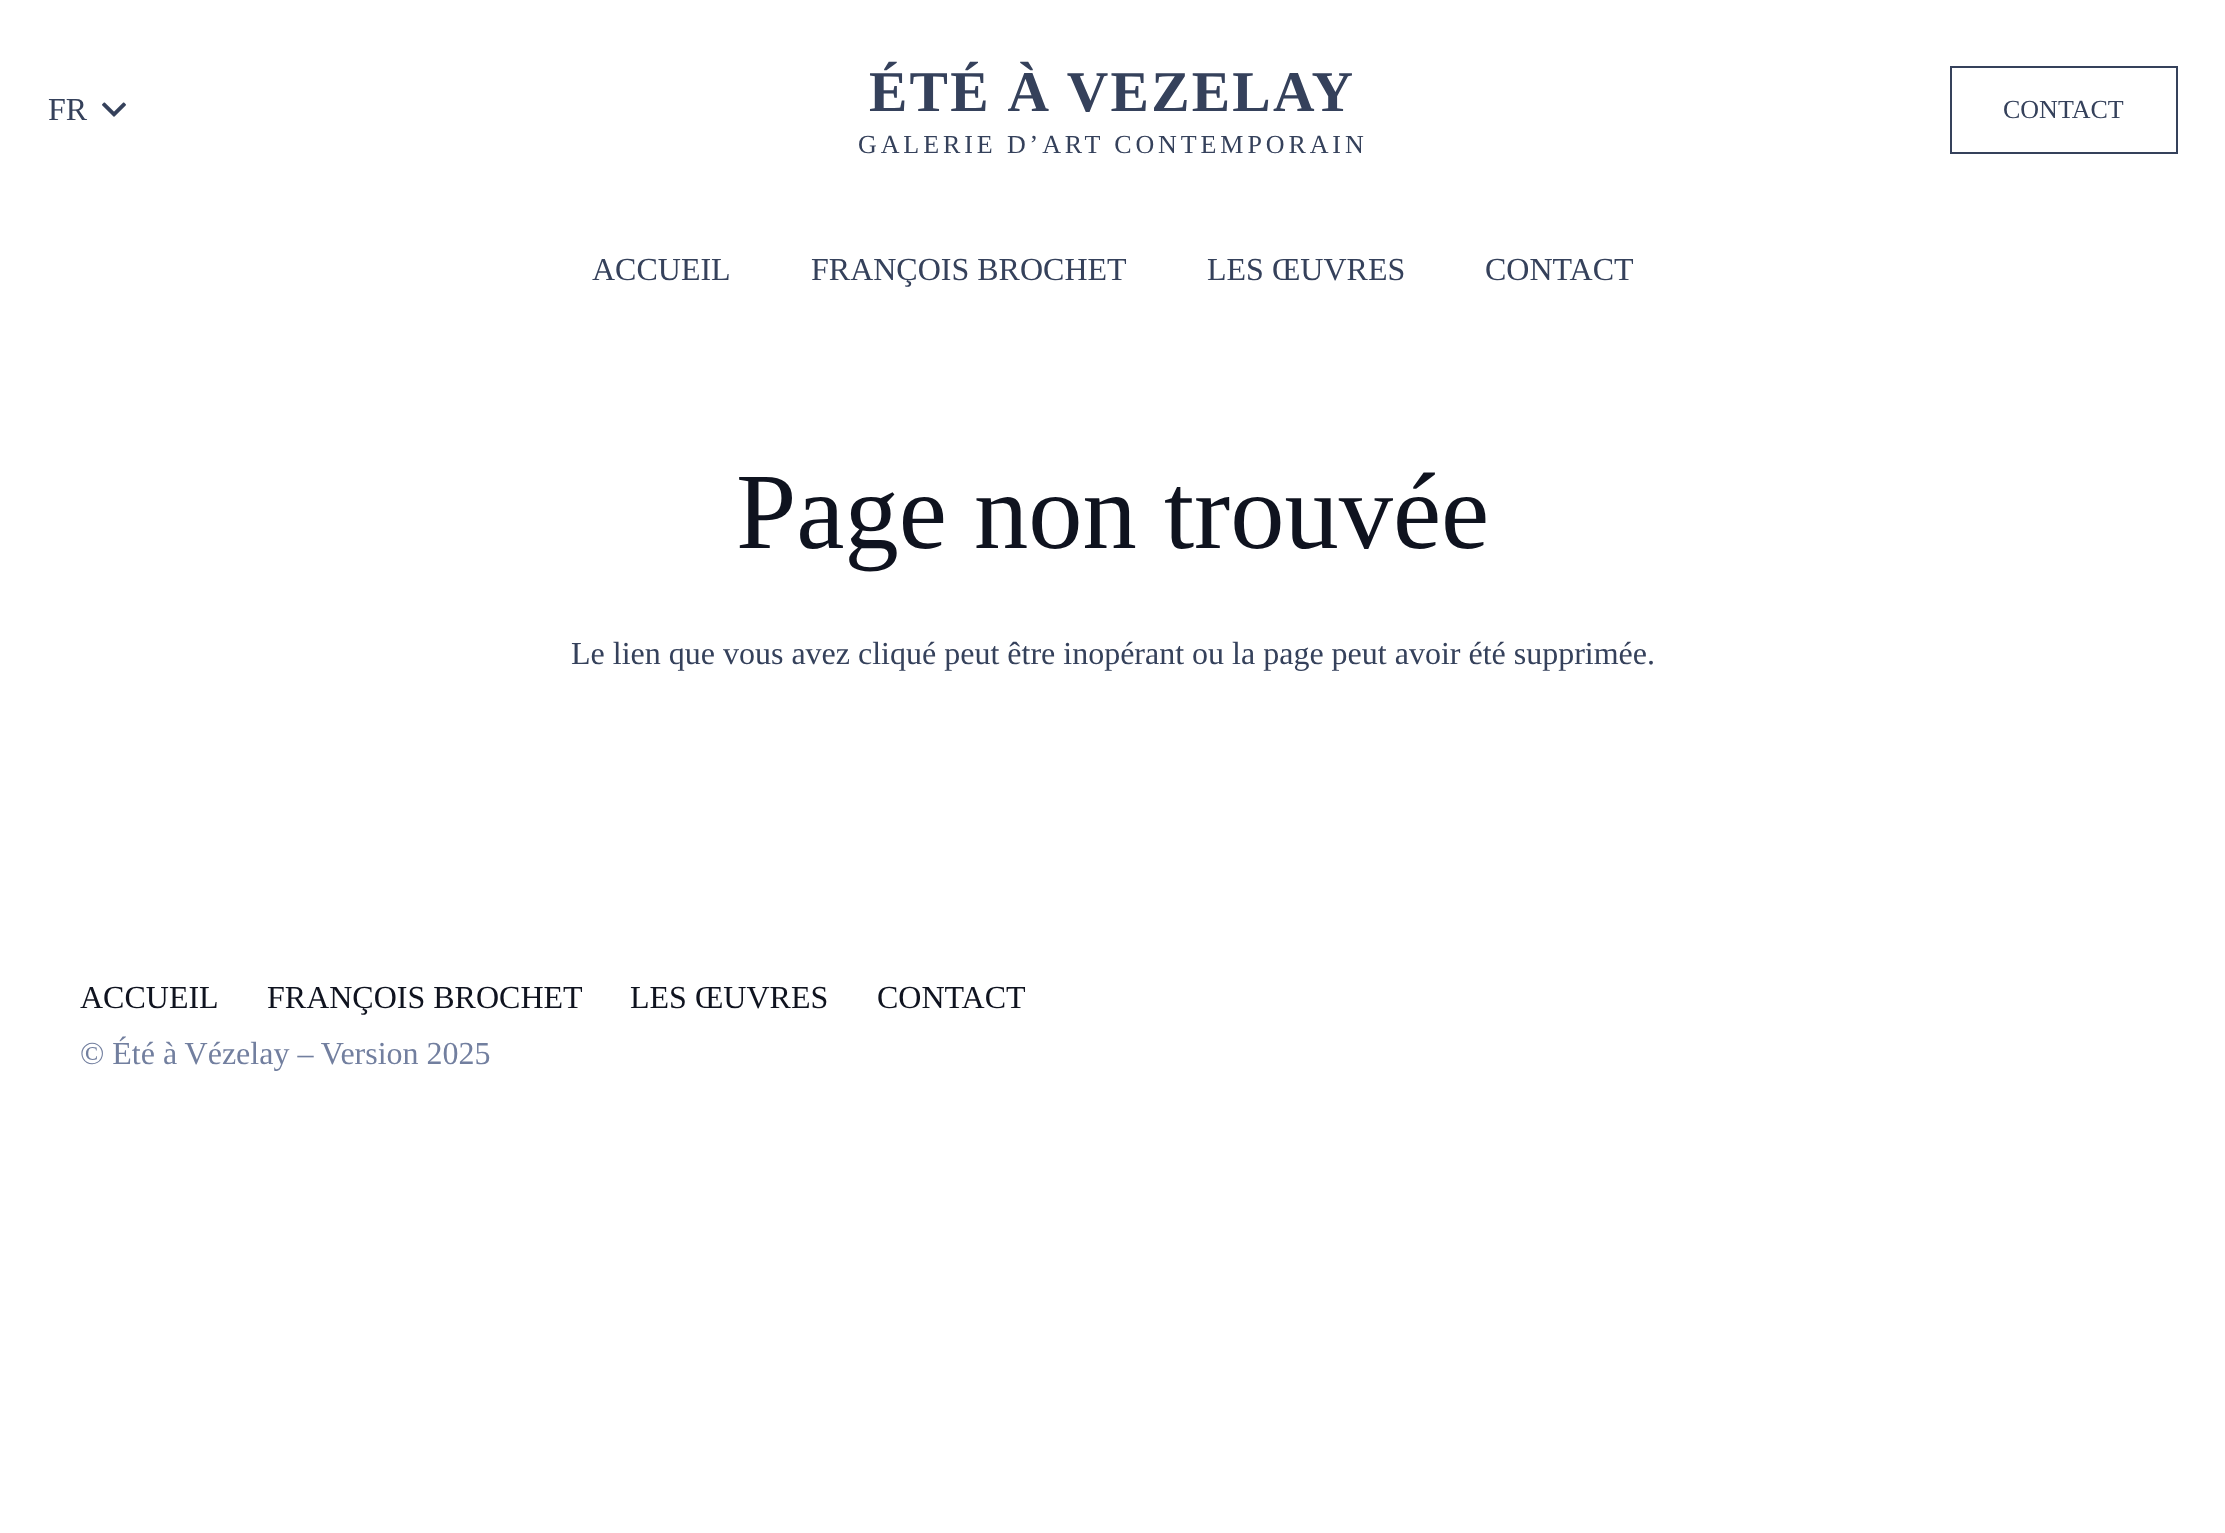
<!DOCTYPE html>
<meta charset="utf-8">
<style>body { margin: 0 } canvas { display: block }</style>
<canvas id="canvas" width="2225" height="1533"></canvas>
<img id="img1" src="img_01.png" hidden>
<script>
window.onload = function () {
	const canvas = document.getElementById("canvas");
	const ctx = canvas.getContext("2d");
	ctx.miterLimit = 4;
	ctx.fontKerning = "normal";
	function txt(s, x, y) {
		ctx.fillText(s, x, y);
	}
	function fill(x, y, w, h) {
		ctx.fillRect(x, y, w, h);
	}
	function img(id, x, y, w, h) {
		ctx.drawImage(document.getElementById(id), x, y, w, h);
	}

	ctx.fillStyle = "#FFFFFF";
	fill(0, 0, 2225, 1533);
	img("img1", 102, 102, 24, 15);
	ctx.strokeStyle = "#35415B";
	ctx.lineWidth = 2;
	ctx.strokeRect(1951, 67, 226, 86);
	ctx.font = "32px Liberation Serif";
	ctx.fillStyle = "#35415B";
	txt("FR", 48, 120);
	ctx.letterSpacing = "2.25px";
	ctx.font = "bold 57.5px Liberation Serif";
	txt("ÉTÉ À VEZELAY", 869, 111);
	ctx.letterSpacing = "3.9px";
	ctx.font = "26px Liberation Serif";
	txt("GALERIE D’ART CONTEMPORAIN", 858, 153);
	ctx.letterSpacing = "0px";
	txt("CONTACT", 2003, 118);
	ctx.font = "32px Liberation Serif";
	txt("ACCUEIL", 592, 280);
	txt("FRANÇOIS BROCHET", 811, 280);
	txt("LES ŒUVRES", 1207, 280);
	txt("CONTACT", 1485, 280);
	ctx.font = "108.5px Liberation Serif";
	ctx.fillStyle = "#0F131F";
	txt("Page non trouvée", 736, 548);
	ctx.font = "32px Liberation Serif";
	ctx.fillStyle = "#35415B";
	txt("Le lien que vous avez cliqué peut être inopérant ou la page peut avoir été supprimée.", 571, 664);
	ctx.fillStyle = "#0F131F";
	txt("ACCUEIL", 80, 1008);
	txt("FRANÇOIS BROCHET", 267, 1008);
	txt("LES ŒUVRES", 630, 1008);
	txt("CONTACT", 877, 1008);
	ctx.fillStyle = "#727F9F";
	txt("© Été à Vézelay – Version 2025", 80, 1064);
};
</script>
